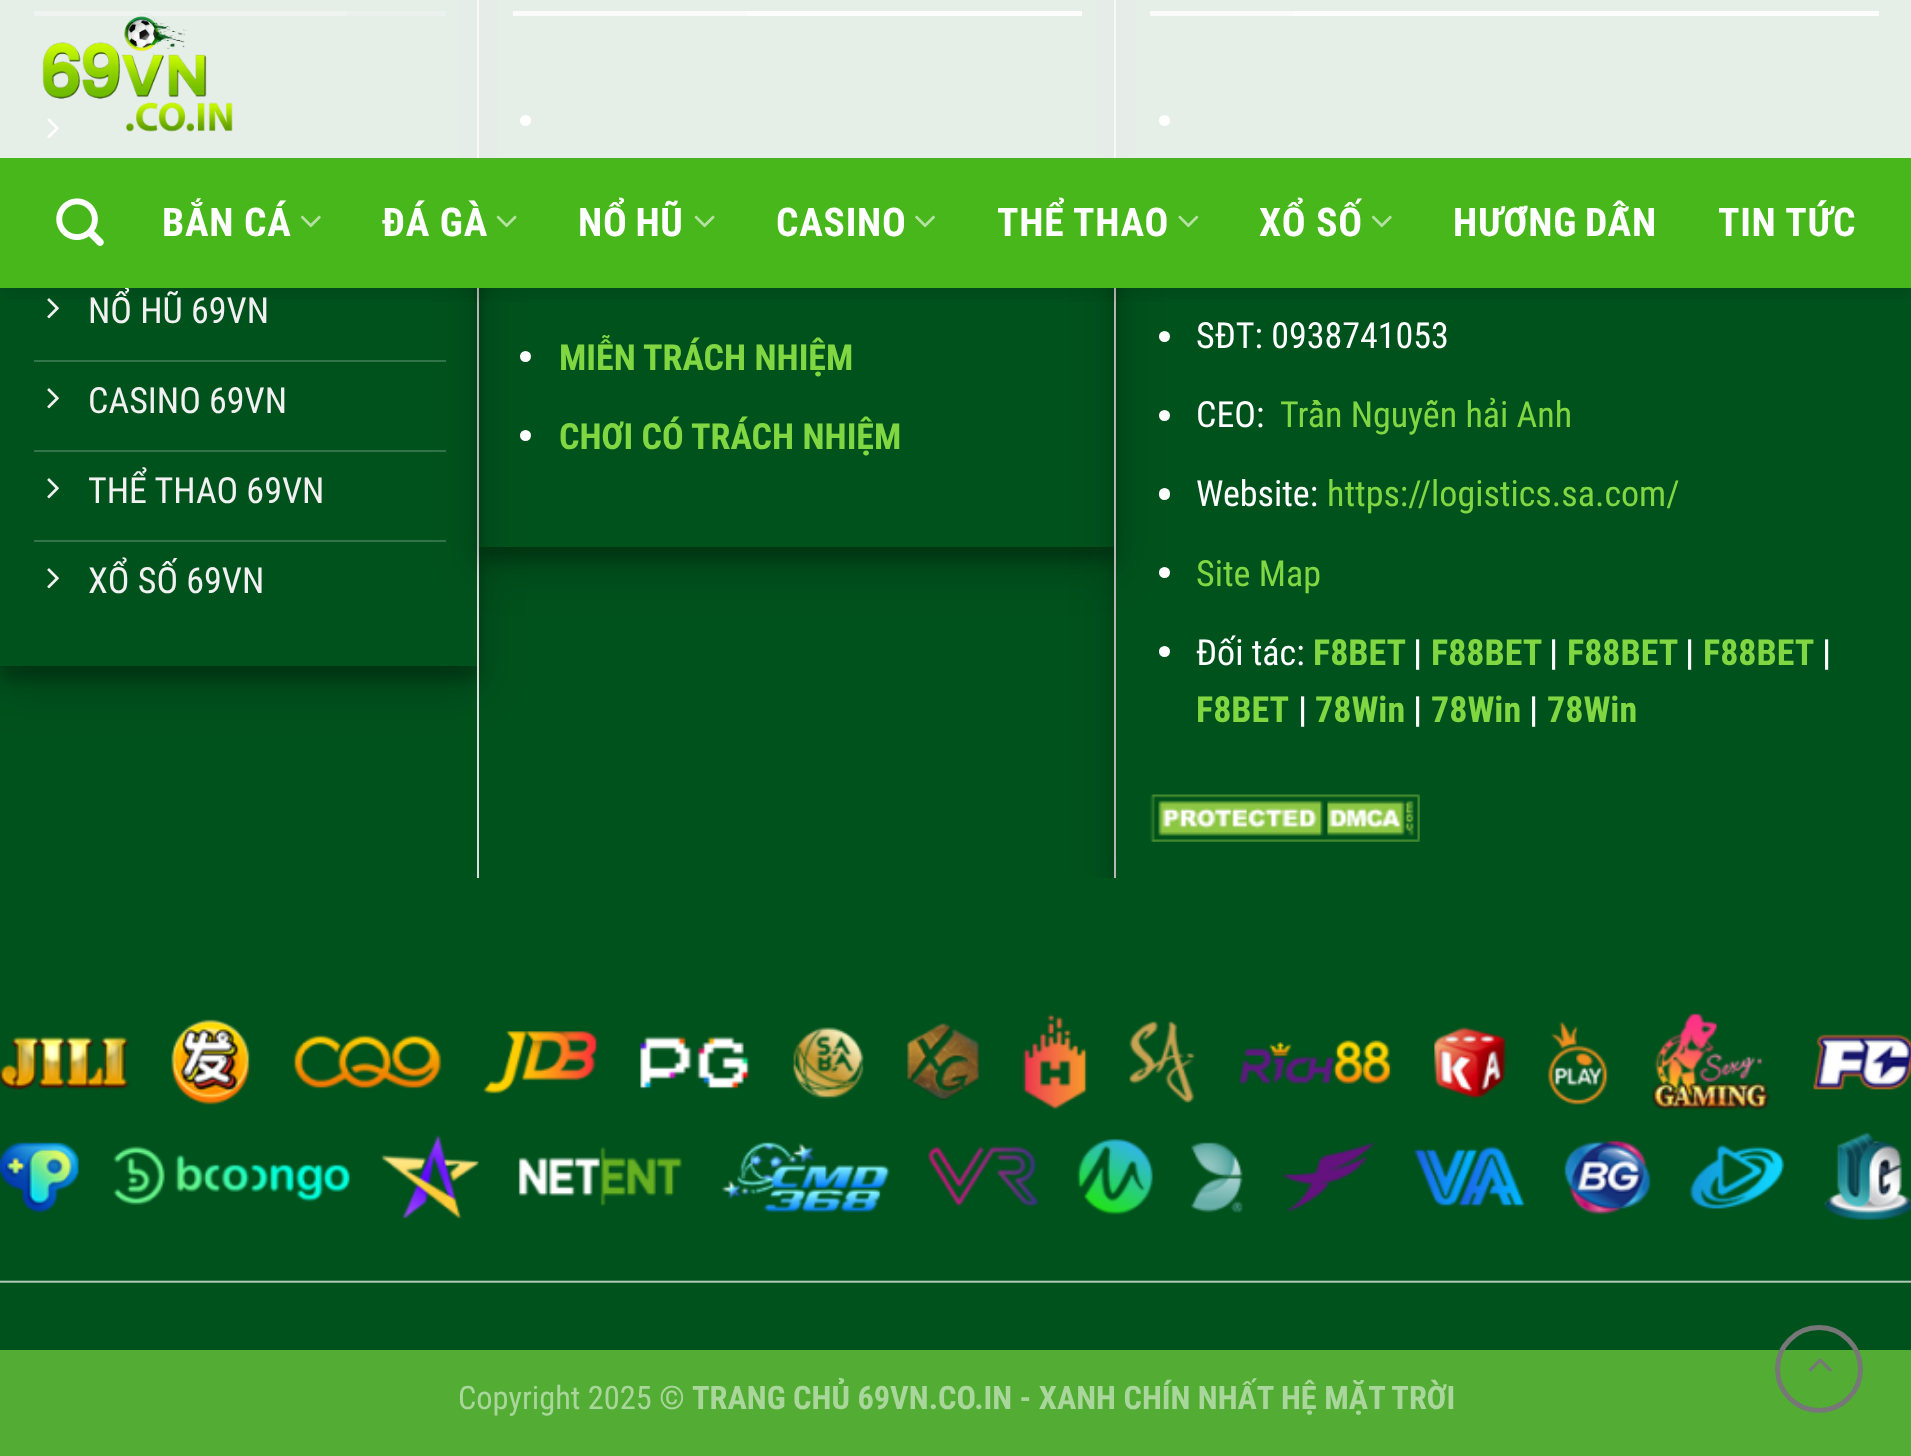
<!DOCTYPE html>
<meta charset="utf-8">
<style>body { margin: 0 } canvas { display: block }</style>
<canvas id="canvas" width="1911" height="1456"></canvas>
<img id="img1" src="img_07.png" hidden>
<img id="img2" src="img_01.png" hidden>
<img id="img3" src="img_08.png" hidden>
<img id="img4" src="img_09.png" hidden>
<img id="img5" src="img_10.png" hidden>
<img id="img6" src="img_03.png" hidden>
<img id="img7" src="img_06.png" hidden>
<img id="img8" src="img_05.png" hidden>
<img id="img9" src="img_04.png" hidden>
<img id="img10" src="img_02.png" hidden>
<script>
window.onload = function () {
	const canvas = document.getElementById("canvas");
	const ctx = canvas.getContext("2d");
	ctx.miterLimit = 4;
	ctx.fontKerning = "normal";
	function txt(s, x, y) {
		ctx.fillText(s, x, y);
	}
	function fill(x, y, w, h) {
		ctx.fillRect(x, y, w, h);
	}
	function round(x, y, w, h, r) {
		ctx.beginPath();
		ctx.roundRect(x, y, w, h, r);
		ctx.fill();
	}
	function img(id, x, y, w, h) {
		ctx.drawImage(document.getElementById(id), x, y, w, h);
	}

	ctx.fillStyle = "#53AD35";
	fill(0, 0, 1911, 1456);
	ctx.fillStyle = "#00521D";
	fill(0, 0, 1911, 1350);
	ctx.save();
	ctx.beginPath();
	ctx.moveTo(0, 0);
	ctx.lineTo(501, 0);
	ctx.lineTo(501, 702);
	ctx.lineTo(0, 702);
	ctx.closePath();
	ctx.moveTo(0, -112);
	ctx.lineTo(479, -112);
	ctx.lineTo(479, 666);
	ctx.lineTo(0, 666);
	ctx.closePath();
	ctx.clip("evenodd");
	ctx.fillStyle = "rgba(0, 0, 0, 0.22)";
	ctx.filter = "blur(7px)";
	ctx.beginPath();
	ctx.rect(0, -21, 479, 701);
	ctx.fill();
	ctx.filter = "none";
	ctx.restore();
	ctx.save();
	ctx.beginPath();
	ctx.moveTo(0, 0);
	ctx.lineTo(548, 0);
	ctx.lineTo(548, 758);
	ctx.lineTo(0, 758);
	ctx.closePath();
	ctx.moveTo(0, -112);
	ctx.lineTo(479, -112);
	ctx.lineTo(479, 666);
	ctx.lineTo(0, 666);
	ctx.closePath();
	ctx.clip("evenodd");
	ctx.fillStyle = "rgba(0, 0, 0, 0.19)";
	ctx.filter = "blur(22.5px)";
	ctx.beginPath();
	ctx.rect(0, -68, 479, 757);
	ctx.fill();
	ctx.filter = "none";
	ctx.restore();
	ctx.fillStyle = "#33754A";
	fill(347, 11, 99, 5);
	ctx.fillStyle = "#5C916E";
	fill(34, 11, 313, 5);
	img("img1", 47, 118, 12, 21);
	img("img1", 47, 298, 12, 21);
	ctx.fillStyle = "#DDDDDD";
	fill(477, 0, 2, 878);
	ctx.save();
	ctx.beginPath();
	ctx.moveTo(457, 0);
	ctx.lineTo(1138, 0);
	ctx.lineTo(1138, 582);
	ctx.lineTo(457, 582);
	ctx.closePath();
	ctx.moveTo(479, -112);
	ctx.lineTo(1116, -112);
	ctx.lineTo(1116, 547);
	ctx.lineTo(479, 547);
	ctx.closePath();
	ctx.clip("evenodd");
	ctx.fillStyle = "rgba(0, 0, 0, 0.22)";
	ctx.filter = "blur(7px)";
	ctx.beginPath();
	ctx.rect(479, -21, 637, 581);
	ctx.fill();
	ctx.filter = "none";
	ctx.restore();
	ctx.fillStyle = "#33754A";
	fill(34, 360, 412, 2);
	fill(34, 450, 412, 2);
	fill(34, 540, 412, 2);
	ctx.save();
	ctx.beginPath();
	ctx.moveTo(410, 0);
	ctx.lineTo(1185, 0);
	ctx.lineTo(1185, 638);
	ctx.lineTo(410, 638);
	ctx.closePath();
	ctx.moveTo(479, -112);
	ctx.lineTo(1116, -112);
	ctx.lineTo(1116, 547);
	ctx.lineTo(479, 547);
	ctx.closePath();
	ctx.clip("evenodd");
	ctx.fillStyle = "rgba(0, 0, 0, 0.19)";
	ctx.filter = "blur(22.5px)";
	ctx.beginPath();
	ctx.rect(479, -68, 637, 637);
	ctx.fill();
	ctx.filter = "none";
	ctx.restore();
	ctx.fillStyle = "#ECECEC";
	fill(747, 11, 335, 5);
	ctx.fillStyle = "#D4D4D4";
	fill(513, 11, 234, 5);
	ctx.fillStyle = "#FFFFFF";
	ctx.beginPath();
	ctx.arc(525.5, 120.5, 5.5, 0, Math.PI * 2);
	ctx.fill();
	ctx.fillStyle = "#DDDDDD";
	fill(1114, 0, 2, 878);
	ctx.save();
	ctx.beginPath();
	ctx.rect(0, 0, 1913, 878);
	ctx.clip();
	ctx.beginPath();
	ctx.moveTo(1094, 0);
	ctx.lineTo(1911, 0);
	ctx.lineTo(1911, 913);
	ctx.lineTo(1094, 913);
	ctx.closePath();
	ctx.moveTo(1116, -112);
	ctx.lineTo(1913, -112);
	ctx.lineTo(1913, 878);
	ctx.lineTo(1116, 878);
	ctx.closePath();
	ctx.clip("evenodd");
	ctx.fillStyle = "rgba(0, 0, 0, 0.22)";
	ctx.filter = "blur(7px)";
	ctx.beginPath();
	ctx.rect(1116, -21, 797, 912);
	ctx.fill();
	ctx.filter = "none";
	ctx.restore();
	ctx.save();
	ctx.beginPath();
	ctx.rect(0, 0, 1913, 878);
	ctx.clip();
	ctx.beginPath();
	ctx.moveTo(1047, 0);
	ctx.lineTo(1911, 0);
	ctx.lineTo(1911, 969);
	ctx.lineTo(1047, 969);
	ctx.closePath();
	ctx.moveTo(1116, -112);
	ctx.lineTo(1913, -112);
	ctx.lineTo(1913, 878);
	ctx.lineTo(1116, 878);
	ctx.closePath();
	ctx.clip("evenodd");
	ctx.fillStyle = "rgba(0, 0, 0, 0.19)";
	ctx.filter = "blur(22.5px)";
	ctx.beginPath();
	ctx.rect(1116, -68, 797, 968);
	ctx.fill();
	ctx.filter = "none";
	ctx.restore();
	ctx.fillStyle = "#ECECEC";
	fill(1294, 11, 585, 5);
	ctx.fillStyle = "#D4D4D4";
	fill(1150, 11, 144, 5);
	ctx.fillStyle = "#FFFFFF";
	ctx.beginPath();
	ctx.arc(1164.5, 120.5, 5.5, 0, Math.PI * 2);
	ctx.fill();
	ctx.save();
	ctx.beginPath();
	ctx.rect(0, 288, 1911, 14);
	ctx.clip();
	ctx.fillStyle = "rgba(0, 0, 0, 0.15)";
	ctx.filter = "blur(11px)";
	ctx.beginPath();
	ctx.rect(2, 2, 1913, 288);
	ctx.fill();
	ctx.filter = "none";
	ctx.restore();
	ctx.fillStyle = "rgba(255, 255, 255, 0.9)";
	fill(0, 0, 1911, 158);
	img("img2", 42, 13, 191, 119);
	img("img1", 47, 388, 12, 21);
	img("img1", 47, 478, 12, 21);
	img("img1", 47, 568, 12, 21);
	ctx.fillStyle = "#FFFFFF";
	ctx.beginPath();
	ctx.arc(525.5, 356.5, 5.5, 0, Math.PI * 2);
	ctx.fill();
	ctx.beginPath();
	ctx.arc(525.5, 435.5, 5.5, 0, Math.PI * 2);
	ctx.fill();
	ctx.beginPath();
	ctx.arc(1164.5, 336.5, 5.5, 0, Math.PI * 2);
	ctx.fill();
	ctx.beginPath();
	ctx.arc(1164.5, 415.5, 5.5, 0, Math.PI * 2);
	ctx.fill();
	round(1159, 488, 11, 12, 5.5);
	ctx.beginPath();
	ctx.arc(1164.5, 572.5, 5.5, 0, Math.PI * 2);
	ctx.fill();
	ctx.beginPath();
	ctx.arc(1164.5, 651.5, 5.5, 0, Math.PI * 2);
	ctx.fill();
	img("img3", 1150, 794, 270, 48);
	img("img4", 0, 1013, 1911, 270);
	ctx.beginPath();
	ctx.arc(1819, 1369, 41.5, 0, Math.PI * 2);
	ctx.strokeStyle = "#777777";
	ctx.lineWidth = 5;
	ctx.stroke();
	img("img5", 1808, 1358, 24, 14);
	ctx.font = "36px Roboto Condensed";
	ctx.fillStyle = "#F1F1F1";
	txt("NỔ HŨ 69VN", 88, 323);
	ctx.fillStyle = "#47B71B";
	fill(0, 158, 1911, 130);
	ctx.fillStyle = "#4CB124";
	fill(34, 158, 1845, 2);
	ctx.letterSpacing = "0.75px";
	ctx.font = "bold 39.5px Roboto Condensed";
	ctx.fillStyle = "#FFFFFF";
	txt("TIN TỨC", 1718, 236);
	ctx.wordSpacing = "-2px";
	txt("HƯỚNG DẪN", 1453, 236);
	img("img6", 1371, 215, 21, 13);
	ctx.wordSpacing = "0px";
	txt("XỔ SỐ", 1259, 236);
	img("img7", 1178, 215, 21, 13);
	txt("THỂ THAO", 997, 236);
	img("img8", 915, 215, 20, 13);
	txt("CASINO", 776, 236);
	img("img9", 694, 215, 21, 13);
	ctx.wordSpacing = "-2px";
	txt("NỔ HŨ", 578, 236);
	img("img9", 496, 215, 21, 13);
	ctx.wordSpacing = "0px";
	txt("ĐÁ GÀ", 382, 236);
	img("img6", 300, 215, 21, 13);
	txt("BẮN CÁ", 162, 236);
	img("img10", 56, 198, 48, 48);
	ctx.letterSpacing = "0px";
	ctx.font = "36px Roboto Condensed";
	ctx.fillStyle = "#F1F1F1";
	txt("CASINO 69VN", 88, 413);
	txt("THỂ THAO 69VN", 88, 503);
	txt("XỔ SỐ 69VN", 88, 593);
	ctx.font = "bold 36px Roboto Condensed";
	ctx.fillStyle = "#81D742";
	txt("MIỄN TRÁCH NHIỆM", 559, 370);
	txt("CHƠI CÓ TRÁCH NHIỆM", 559, 449);
	ctx.font = "36px Roboto Condensed";
	ctx.fillStyle = "#FFFFFF";
	txt("SĐT: 0938741053", 1196, 348);
	txt("CEO:", 1196, 427);
	ctx.fillStyle = "#81D742";
	txt("Trần Nguyễn hải Anh", 1280, 427);
	ctx.fillStyle = "#FFFFFF";
	txt("Website:", 1196, 506);
	ctx.fillStyle = "#81D742";
	txt("https://logistics.sa.com/", 1327, 506);
	txt("Site Map", 1196, 586);
	ctx.fillStyle = "#FFFFFF";
	txt("Đối tác:", 1196, 665);
	ctx.font = "bold 36px Roboto Condensed";
	ctx.fillStyle = "#81D742";
	txt("F8BET", 1313, 665);
	ctx.fillStyle = "#FFFFFF";
	txt("|", 1413, 665);
	ctx.fillStyle = "#81D742";
	txt("F88BET", 1431, 665);
	ctx.fillStyle = "#FFFFFF";
	txt("|", 1549, 665);
	ctx.fillStyle = "#81D742";
	txt("F88BET", 1567, 665);
	ctx.fillStyle = "#FFFFFF";
	txt("|", 1685, 665);
	ctx.fillStyle = "#81D742";
	txt("F88BET", 1703, 665);
	ctx.fillStyle = "#FFFFFF";
	txt("|", 1822, 665);
	ctx.fillStyle = "#81D742";
	txt("F8BET", 1196, 722);
	ctx.fillStyle = "#FFFFFF";
	txt("|", 1298, 722);
	ctx.fillStyle = "#81D742";
	txt("78Win", 1315, 722);
	ctx.fillStyle = "#FFFFFF";
	txt("|", 1413, 722);
	ctx.fillStyle = "#81D742";
	txt("78Win", 1431, 722);
	ctx.fillStyle = "#FFFFFF";
	txt("|", 1529, 722);
	ctx.fillStyle = "#81D742";
	txt("78Win", 1547, 722);
	ctx.font = "32.4px Roboto Condensed";
	ctx.fillStyle = "#A9D69A";
	txt("Copyright 2025 ©", 458, 1409);
	ctx.font = "bold 32.4px Roboto Condensed";
	txt("TRANG CHỦ 69VN.CO.IN - XANH CHÍN NHẤT HỆ MẶT TRỜI", 692, 1409);
};
</script>
